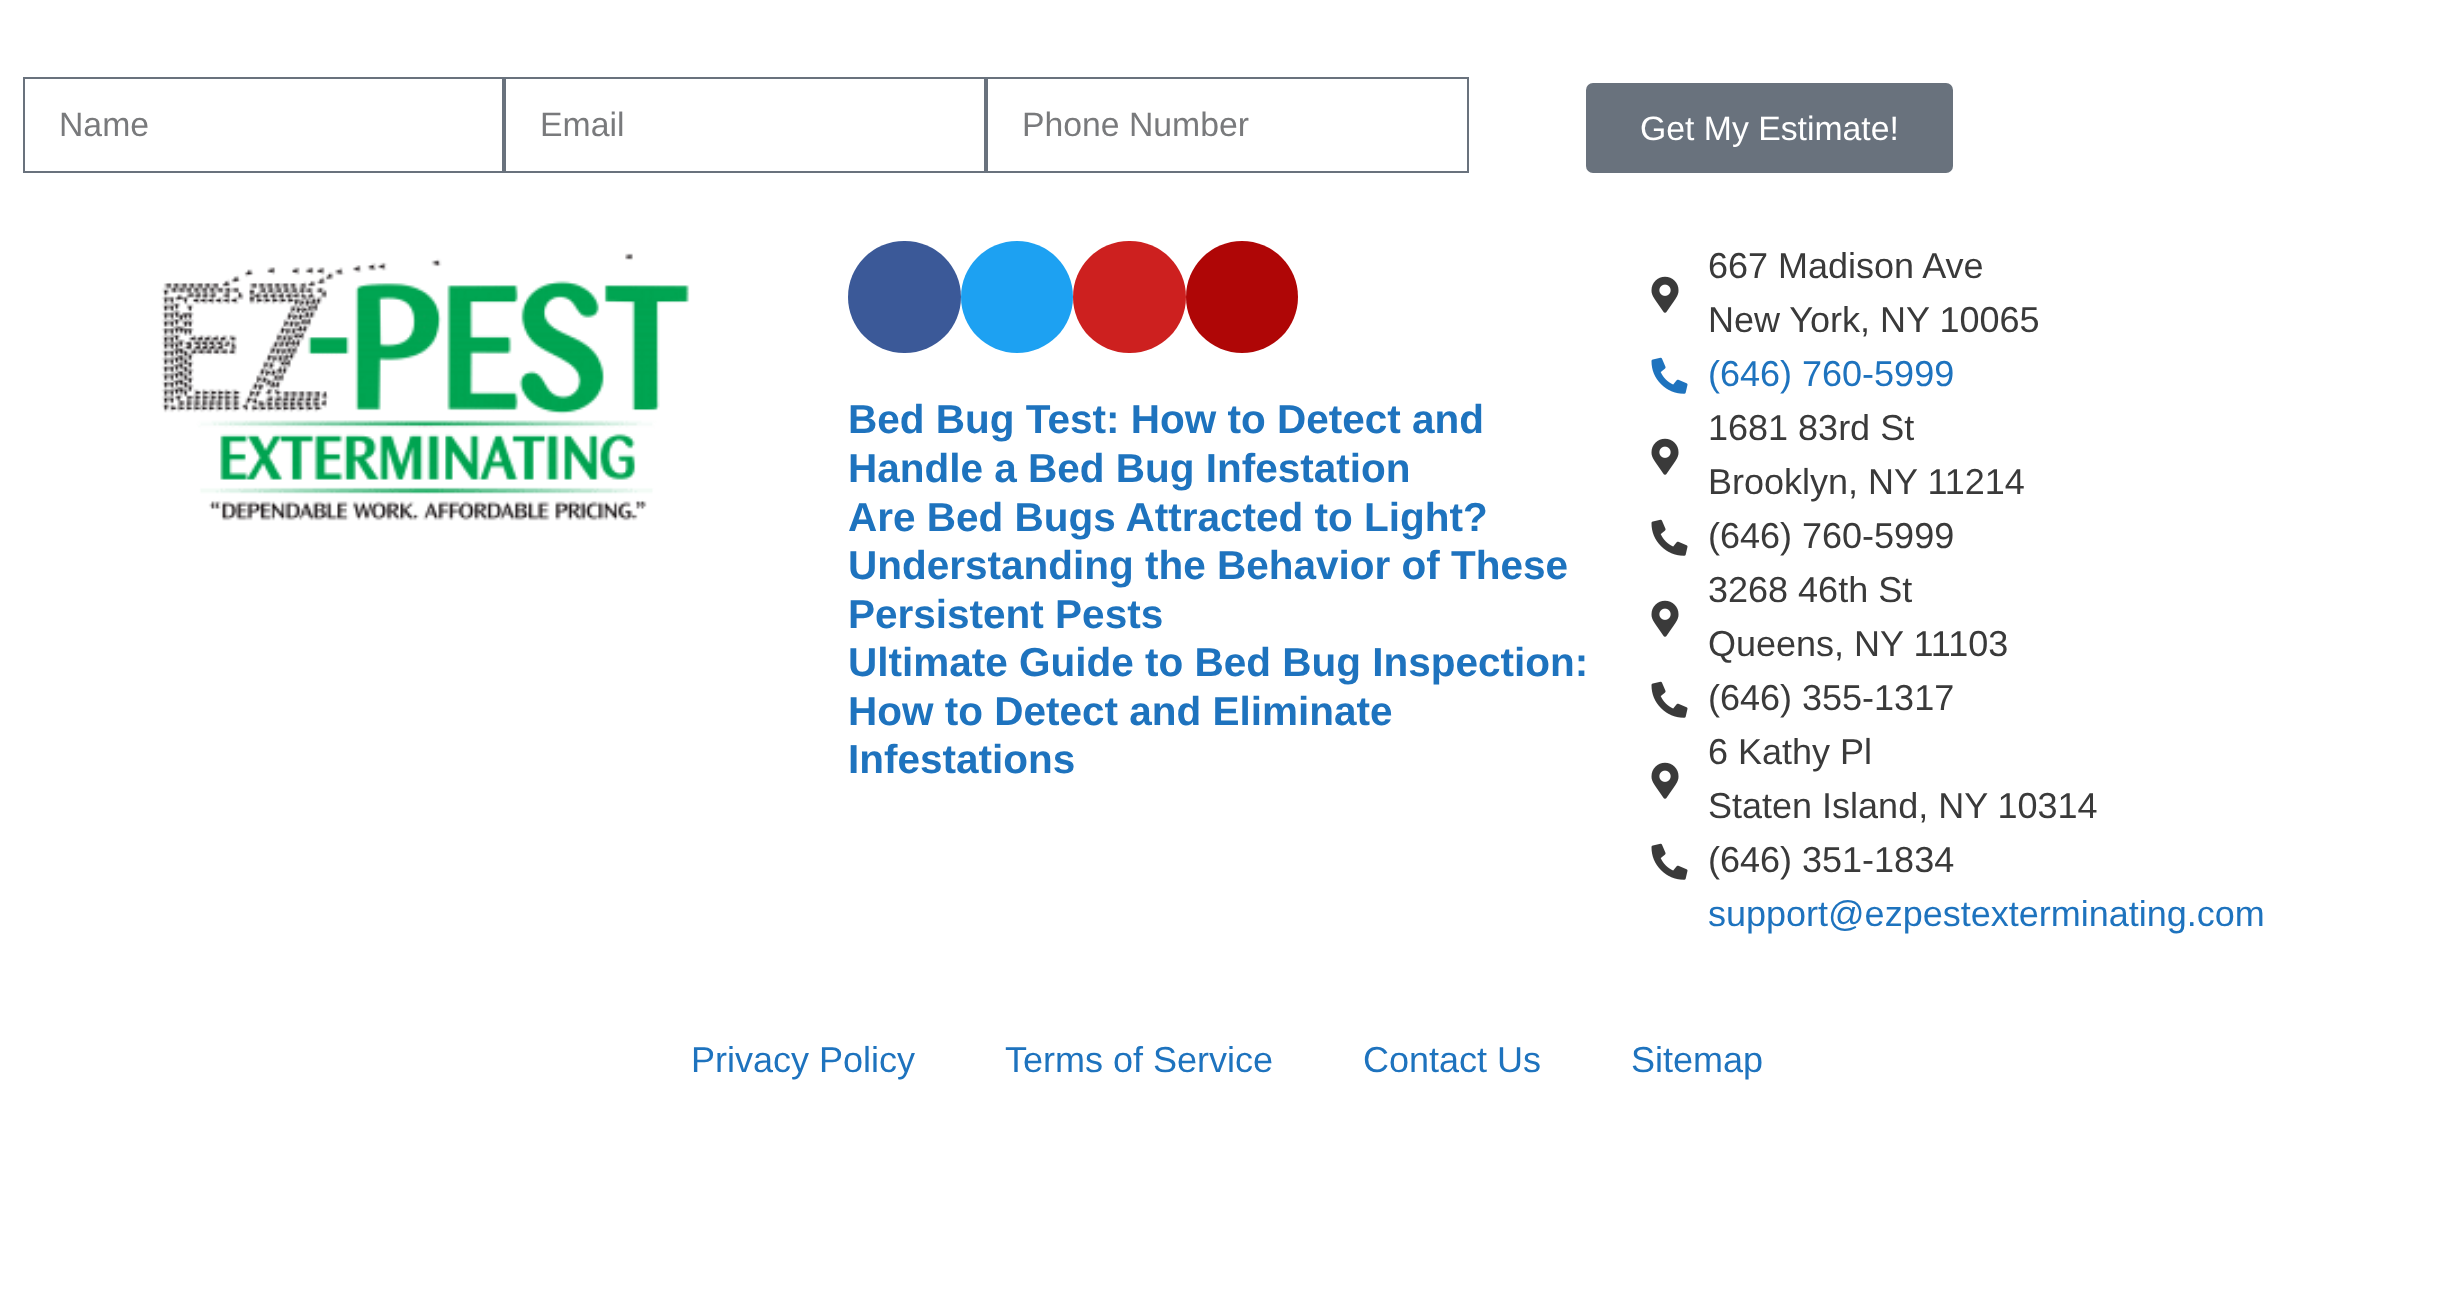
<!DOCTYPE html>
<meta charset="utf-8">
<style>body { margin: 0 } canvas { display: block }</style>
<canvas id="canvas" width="2453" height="1309"></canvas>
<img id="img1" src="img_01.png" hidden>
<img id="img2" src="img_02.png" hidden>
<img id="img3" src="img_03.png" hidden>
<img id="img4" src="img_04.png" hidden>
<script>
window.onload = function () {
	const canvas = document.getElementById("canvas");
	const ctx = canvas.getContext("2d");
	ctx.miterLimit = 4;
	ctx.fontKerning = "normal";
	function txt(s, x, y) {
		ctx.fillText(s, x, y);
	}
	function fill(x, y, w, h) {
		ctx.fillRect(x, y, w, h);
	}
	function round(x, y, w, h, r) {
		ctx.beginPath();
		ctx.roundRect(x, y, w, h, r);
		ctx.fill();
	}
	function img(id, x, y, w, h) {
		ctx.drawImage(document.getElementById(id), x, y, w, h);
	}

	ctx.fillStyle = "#FFFFFF";
	fill(0, 0, 2453, 1309);
	ctx.strokeStyle = "#69727D";
	ctx.lineWidth = 2;
	ctx.strokeRect(24, 78, 479, 94);
	ctx.strokeRect(505, 78, 480, 94);
	ctx.strokeRect(987, 78, 481, 94);
	ctx.fillStyle = "#69727D";
	round(1586, 83, 367, 90, 7);
	img("img1", 161, 253, 529, 268);
	ctx.fillStyle = "#3B5998";
	round(848, 241, 113, 112, 56);
	ctx.fillStyle = "#1DA1F2";
	ctx.beginPath();
	ctx.arc(1017, 297, 56, 0, Math.PI * 2);
	ctx.fill();
	ctx.fillStyle = "#CD201F";
	round(1073, 241, 113, 112, 56);
	ctx.fillStyle = "#AF0606";
	ctx.beginPath();
	ctx.arc(1242, 297, 56, 0, Math.PI * 2);
	ctx.fill();
	img("img2", 1651, 276, 28, 37);
	img("img3", 1651, 357, 37, 37);
	img("img2", 1651, 438, 28, 37);
	img("img4", 1651, 519, 37, 37);
	img("img2", 1651, 600, 28, 37);
	img("img4", 1651, 681, 37, 37);
	img("img2", 1651, 762, 28, 37);
	img("img4", 1651, 843, 37, 37);
	ctx.font = "33.75px Liberation Sans";
	ctx.fillStyle = "#797A7C";
	txt("Name", 59, 136);
	txt("Email", 540, 136);
	txt("Phone Number", 1022, 136);
	ctx.fillStyle = "#FFFFFF";
	txt("Get My Estimate!", 1640, 140);
	ctx.font = "bold 40.5px Liberation Sans";
	ctx.fillStyle = "#1E73BE";
	txt("Bed Bug Test: How to Detect and", 848, 433);
	txt("Handle a Bed Bug Infestation", 848, 482);
	txt("Are Bed Bugs Attracted to Light?", 848, 531);
	txt("Understanding the Behavior of These", 848, 579);
	txt("Persistent Pests", 848, 628);
	txt("Ultimate Guide to Bed Bug Inspection:", 848, 676);
	txt("How to Detect and Eliminate", 848, 725);
	txt("Infestations", 848, 773);
	ctx.font = "36px Liberation Sans";
	ctx.fillStyle = "#3A3A3A";
	txt("667 Madison Ave", 1708, 278);
	txt("New York, NY 10065", 1708, 332);
	ctx.fillStyle = "#1E73BE";
	txt("(646) 760-5999", 1708, 386);
	ctx.fillStyle = "#3A3A3A";
	txt("1681 83rd St", 1708, 440);
	txt("Brooklyn, NY 11214", 1708, 494);
	txt("(646) 760-5999", 1708, 548);
	txt("3268 46th St", 1708, 602);
	txt("Queens, NY 11103", 1708, 656);
	txt("(646) 355-1317", 1708, 710);
	txt("6 Kathy Pl", 1708, 764);
	txt("Staten Island, NY 10314", 1708, 818);
	txt("(646) 351-1834", 1708, 872);
	ctx.fillStyle = "#1E73BE";
	txt("support@ezpestexterminating.com", 1708, 926);
	txt("Privacy Policy", 691, 1072);
	txt("Terms of Service", 1005, 1072);
	txt("Contact Us", 1363, 1072);
	txt("Sitemap", 1631, 1072);
};
</script>
